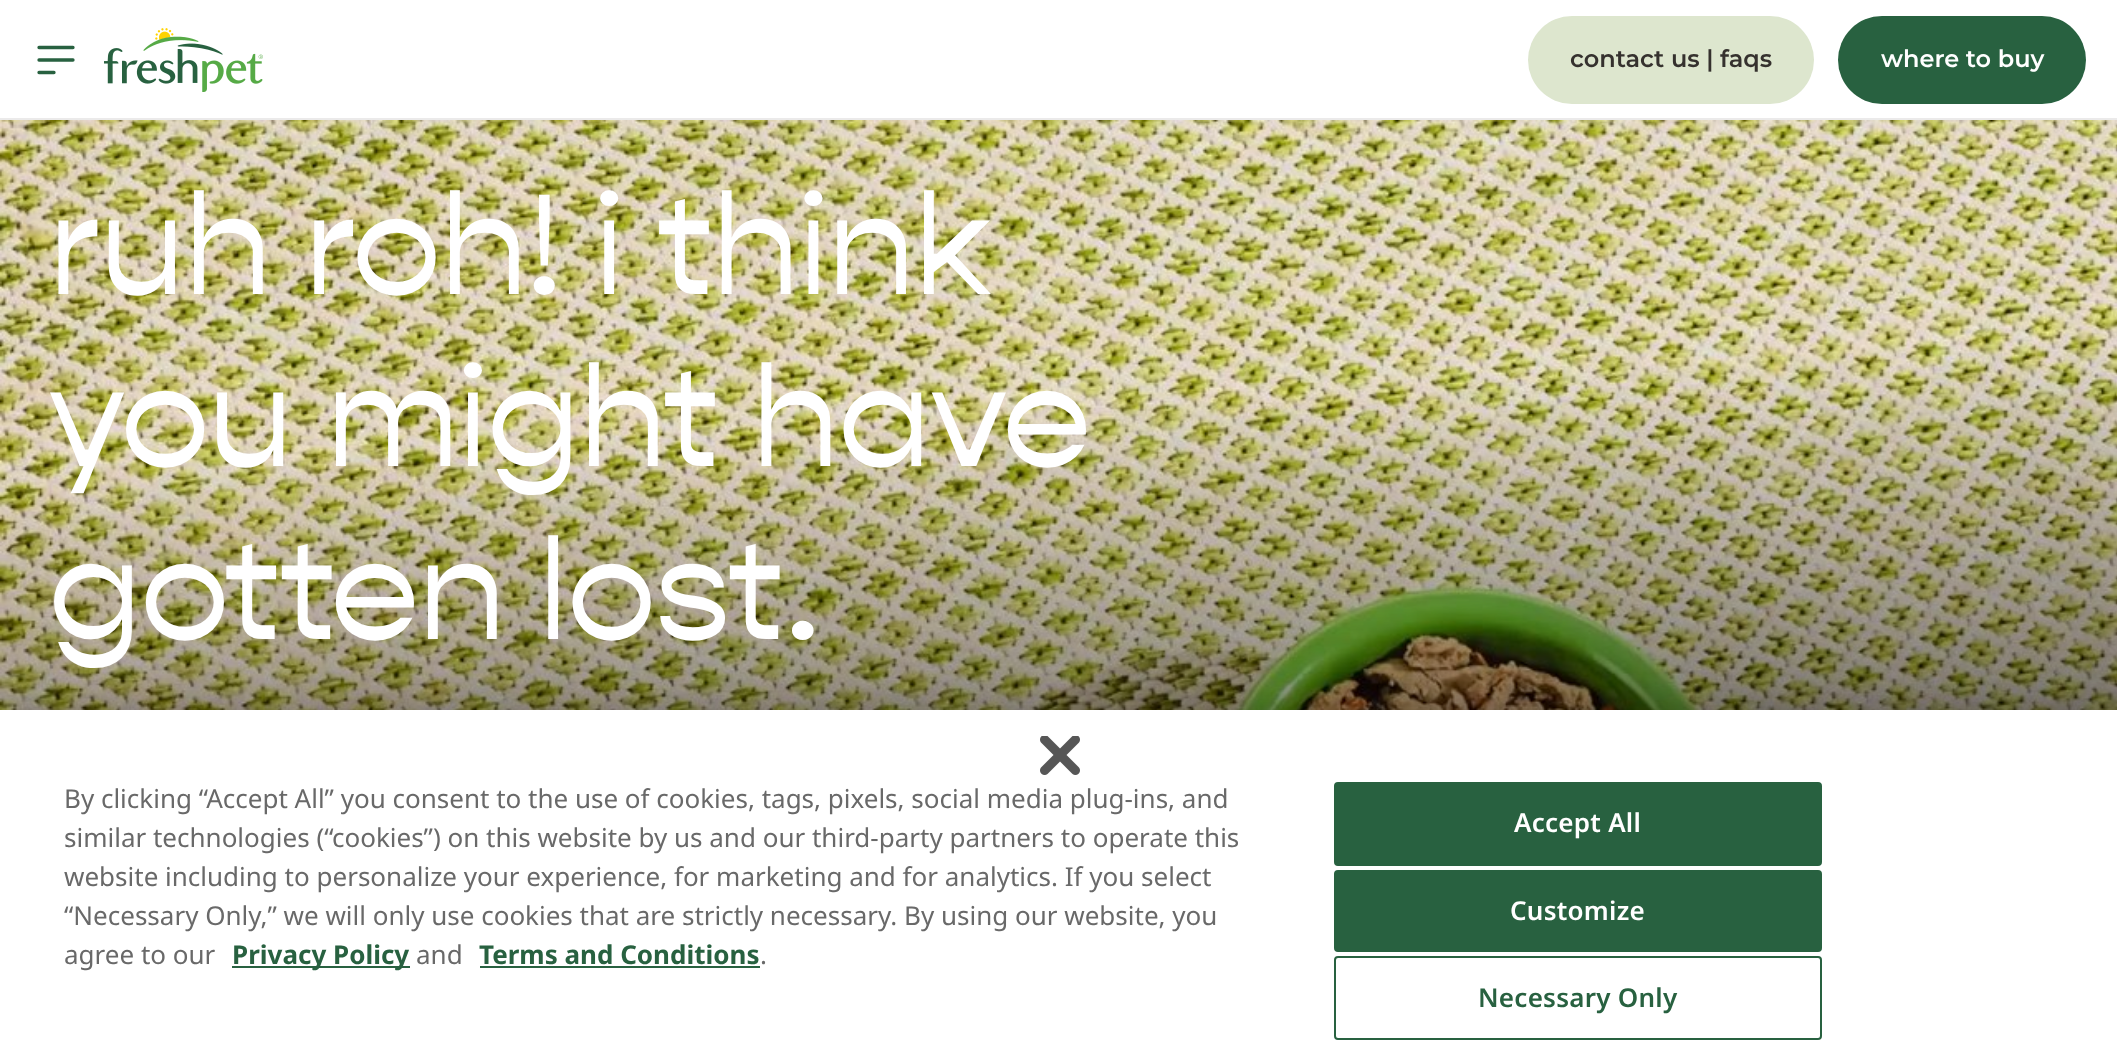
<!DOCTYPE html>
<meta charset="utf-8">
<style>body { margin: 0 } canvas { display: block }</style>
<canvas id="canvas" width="2117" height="1041"></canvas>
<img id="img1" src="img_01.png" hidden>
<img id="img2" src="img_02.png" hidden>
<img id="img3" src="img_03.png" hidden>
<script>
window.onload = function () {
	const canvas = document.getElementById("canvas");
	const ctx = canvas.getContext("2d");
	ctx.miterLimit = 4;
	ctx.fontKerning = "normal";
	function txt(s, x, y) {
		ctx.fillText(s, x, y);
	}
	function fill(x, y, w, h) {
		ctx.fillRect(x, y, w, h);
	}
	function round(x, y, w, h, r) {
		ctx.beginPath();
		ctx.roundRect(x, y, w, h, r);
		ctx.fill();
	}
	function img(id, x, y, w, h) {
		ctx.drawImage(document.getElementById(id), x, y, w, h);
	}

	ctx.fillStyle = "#FFFFFF";
	fill(0, 0, 2117, 1041);
	ctx.fillStyle = "#EBEAEA";
	fill(0, 118, 2117, 2);
	ctx.beginPath();
	ctx.moveTo(39, 47.5);
	ctx.lineTo(73, 47.5);
	ctx.moveTo(39, 60);
	ctx.lineTo(73, 60);
	ctx.moveTo(39, 72.5);
	ctx.lineTo(54, 72.5);
	ctx.strokeStyle = "#286140";
	ctx.lineWidth = 3.3;
	ctx.lineCap = "round";
	ctx.lineJoin = "round";
	ctx.stroke();
	img("img1", 104, 28, 159, 64);
	ctx.fillStyle = "#DDE6CE";
	round(1528, 16, 286, 88, 44);
	ctx.fillStyle = "#286140";
	round(1838, 16, 248, 88, 44);
	img("img2", 0, 120, 2117, 590);
	ctx.fillStyle = "rgba(0, 0, 0, 0.2)";
	ctx.filter = "blur(18px)";
	ctx.beginPath();
	ctx.rect(0, 710, 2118, 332);
	ctx.fill();
	ctx.filter = "none";
	ctx.fillStyle = "#FFFFFF";
	fill(0, 710, 2117, 331);
	img("img3", 1040, 736, 40, 39);
	ctx.fillStyle = "#286140";
	fill(232, 966, 178, 2);
	fill(480, 966, 280, 2);
	ctx.beginPath();
	ctx.roundRect(1335, 783, 486, 82, 3);
	ctx.fill();
	ctx.lineWidth = 2;
	ctx.lineJoin = "miter";
	ctx.stroke();
	ctx.beginPath();
	ctx.roundRect(1335, 871, 486, 80, 3);
	ctx.fill();
	ctx.stroke();
	ctx.beginPath();
	ctx.roundRect(1335, 957, 486, 82, 3);
	ctx.stroke();
	ctx.font = "600 24px Montserrat";
	ctx.fillStyle = "#35312E";
	txt("contact us | faqs", 1570, 67);
	ctx.fillStyle = "#FFFFFF";
	txt("where to buy", 1881, 67);
	ctx.letterSpacing = "-2px";
	ctx.font = "144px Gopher";
	txt("ruh roh! i think", 48, 294);
	txt("you might have", 48, 466);
	txt("gotten lost.", 48, 639);
	ctx.letterSpacing = "0px";
	ctx.font = "26px Noto Sans";
	ctx.fillStyle = "#696969";
	txt("By clicking “Accept All” you consent to the use of cookies, tags, pixels, social media plug-ins, and", 64, 808);
	txt("similar technologies (“cookies”) on this website by us and our third-party partners to operate this", 64, 847);
	txt("website including to personalize your experience, for marketing and for analytics. If you select", 64, 886);
	txt("“Necessary Only,” we will only use cookies that are strictly necessary.", 64, 925);
	txt("By using our website, you", 904, 925);
	txt("agree to our", 64, 964);
	ctx.font = "bold 26px Noto Sans";
	ctx.fillStyle = "#286140";
	txt("Privacy Policy", 232, 964);
	ctx.font = "26px Noto Sans";
	ctx.fillStyle = "#696969";
	txt("and", 416, 964);
	ctx.font = "bold 26px Noto Sans";
	ctx.fillStyle = "#286140";
	txt("Terms and Conditions", 479, 964);
	ctx.font = "26px Noto Sans";
	ctx.fillStyle = "#696969";
	txt(".", 760, 964);
	ctx.letterSpacing = "0.25px";
	ctx.font = "600 26px Noto Sans";
	ctx.fillStyle = "#FFFFFF";
	txt("Accept All", 1514, 832);
	txt("Customize", 1510, 920);
	ctx.fillStyle = "#286140";
	txt("Necessary Only", 1478, 1007);
};
</script>
